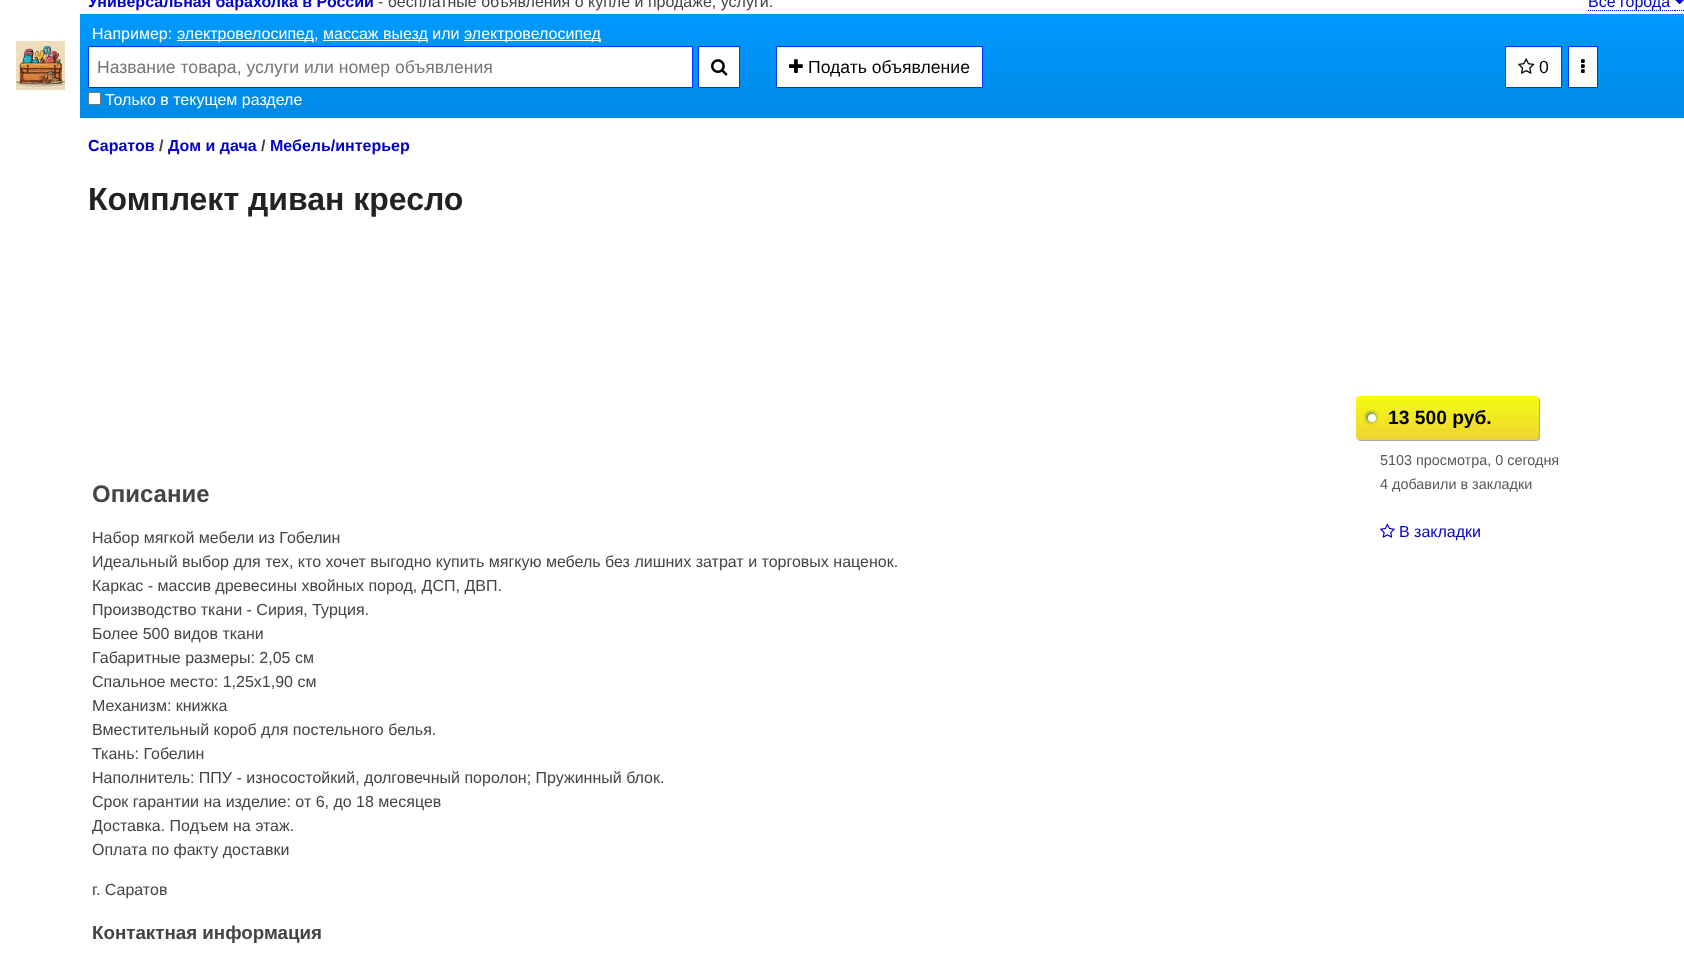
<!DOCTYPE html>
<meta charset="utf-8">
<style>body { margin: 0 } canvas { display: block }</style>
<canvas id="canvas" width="1684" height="958"></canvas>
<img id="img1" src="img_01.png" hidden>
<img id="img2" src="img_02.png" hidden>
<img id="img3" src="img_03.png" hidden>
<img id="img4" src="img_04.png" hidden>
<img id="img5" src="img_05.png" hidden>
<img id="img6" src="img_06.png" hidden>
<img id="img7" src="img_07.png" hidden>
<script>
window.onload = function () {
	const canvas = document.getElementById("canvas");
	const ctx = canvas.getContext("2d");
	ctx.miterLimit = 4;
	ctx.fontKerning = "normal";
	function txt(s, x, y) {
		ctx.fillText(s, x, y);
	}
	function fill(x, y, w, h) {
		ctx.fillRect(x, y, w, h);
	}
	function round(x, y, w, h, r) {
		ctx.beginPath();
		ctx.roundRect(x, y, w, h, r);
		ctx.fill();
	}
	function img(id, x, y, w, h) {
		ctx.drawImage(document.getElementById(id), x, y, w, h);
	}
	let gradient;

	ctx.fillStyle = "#FFFFFF";
	fill(0, 0, 1684, 958);
	ctx.beginPath();
	ctx.moveTo(1588, 10.5);
	ctx.lineTo(1675, 10.5);
	ctx.strokeStyle = "#0000CC";
	ctx.setLineDash([1, 1]);
	ctx.stroke();
	ctx.beginPath();
	ctx.moveTo(1675, 10.5);
	ctx.lineTo(1684, 10.5);
	ctx.stroke();
	img("img1", 1675, 0, 9, 5);
	gradient = ctx.createLinearGradient(0, 14, 0, 118);
	gradient.addColorStop(0, "#0099FF");
	gradient.addColorStop(1, "#008AE6");
	ctx.fillStyle = gradient;
	fill(80, 14, 1604, 104);
	img("img2", 16, 41, 49, 49);
	ctx.fillStyle = "#FFFFFF";
	fill(177, 40, 137, 1);
	fill(323, 40, 105, 1);
	fill(464, 40, 137, 1);
	fill(89, 48, 603, 39);
	ctx.fillStyle = "#ECECEC";
	fill(89, 47, 603, 1);
	ctx.strokeStyle = "#0033FF";
	ctx.setLineDash([]);
	ctx.strokeRect(88.5, 46.5, 604, 41);
	ctx.fillStyle = "#FFFFFF";
	fill(699, 48, 40, 39);
	ctx.fillStyle = "#ECECEC";
	fill(699, 47, 40, 1);
	ctx.strokeRect(698.5, 46.5, 41, 41);
	img("img3", 711, 59, 17, 17);
	ctx.fillStyle = "#FFFFFF";
	ctx.beginPath();
	ctx.roundRect(88.5, 92.5, 12, 12, 1.5);
	ctx.fill();
	ctx.strokeStyle = "#767676";
	ctx.stroke();
	fill(777, 48, 205, 39);
	ctx.fillStyle = "#ECECEC";
	fill(777, 47, 205, 1);
	ctx.strokeStyle = "#0033FF";
	ctx.strokeRect(776.5, 46.5, 206, 41);
	img("img4", 789, 59, 14, 14);
	ctx.fillStyle = "#FFFFFF";
	fill(1506, 48, 55, 39);
	ctx.fillStyle = "#ECECEC";
	fill(1506, 47, 55, 1);
	ctx.strokeRect(1505.5, 46.5, 56, 41);
	img("img5", 1518, 58, 17, 16);
	ctx.fillStyle = "#FFFFFF";
	fill(1569, 48, 28, 39);
	ctx.fillStyle = "#ECECEC";
	fill(1569, 47, 28, 1);
	ctx.strokeRect(1568.5, 46.5, 29, 41);
	img("img6", 1581, 59, 4, 14);
	ctx.fillStyle = "#AAAAAA";
	ctx.filter = "blur(0.5px)";
	ctx.beginPath();
	ctx.roundRect(1357, 397, 183, 44, 4);
	ctx.fill();
	ctx.filter = "none";
	gradient = ctx.createLinearGradient(1356, 396, 1356, 440);
	gradient.addColorStop(0, "#F4FD0F");
	gradient.addColorStop(1, "#EFD334");
	ctx.fillStyle = gradient;
	round(1356, 396, 183, 44, 4);
	ctx.fillStyle = "#004977";
	ctx.filter = "blur(2px)";
	ctx.beginPath();
	ctx.roundRect(1367, 413, 8, 8, 4);
	ctx.fill();
	ctx.filter = "none";
	ctx.fillStyle = "#FFFFFF";
	ctx.beginPath();
	ctx.arc(1372, 418, 4, 0, Math.PI * 2);
	ctx.fill();
	img("img7", 1380, 523, 15, 15);
	ctx.font = "bold 16px Liberation Sans";
	ctx.fillStyle = "#0000CC";
	txt("Универсальная барахолка в России", 88, 7);
	ctx.font = "16px Liberation Sans";
	ctx.fillStyle = "#444444";
	txt("- бесплатные объявления о купле и продаже, услуги.", 378, 7);
	ctx.fillStyle = "#0000CC";
	txt("Все города", 1588, 7);
	ctx.fillStyle = "#FFFFFF";
	txt("Например:", 92, 39);
	txt("электровелосипед,", 177, 39);
	txt("массаж выезд или", 323, 39);
	txt("электровелосипед", 464, 39);
	ctx.font = "17.6px Liberation Sans";
	ctx.fillStyle = "#757575";
	txt("Название товара, услуги или номер объявления", 97, 73);
	ctx.font = "16px Liberation Sans";
	ctx.fillStyle = "#FFFFFF";
	txt("Только в текущем разделе", 105, 105);
	ctx.font = "17.6px Liberation Sans";
	ctx.fillStyle = "#000000";
	txt("Подать объявление", 808, 73);
	txt("0", 1539, 73);
	ctx.font = "bold 16px Liberation Sans";
	ctx.fillStyle = "#0000CC";
	txt("Саратов", 88, 151);
	ctx.fillStyle = "#444444";
	txt("/", 159, 151);
	ctx.fillStyle = "#0000CC";
	txt("Дом и дача", 168, 151);
	ctx.fillStyle = "#444444";
	txt("/", 261, 151);
	ctx.fillStyle = "#0000CC";
	txt("Мебель/интерьер", 270, 151);
	ctx.font = "bold 32px Liberation Sans";
	ctx.fillStyle = "#222222";
	txt("Комплект диван кресло", 88, 210);
	ctx.font = "bold 24px Liberation Sans";
	ctx.fillStyle = "#444444";
	txt("Описание", 92, 502);
	ctx.font = "16px Liberation Sans";
	txt("Набор мягкой мебели из Гобелин", 92, 543);
	txt("Идеальный выбор для тех, кто хочет выгодно купить мягкую мебель без лишних затрат и торговых наценок.", 92, 567);
	txt("Каркас - массив древесины хвойных пород, ДСП, ДВП.", 92, 591);
	txt("Производство ткани - Сирия, Турция.", 92, 615);
	txt("Более 500 видов ткани", 92, 639);
	txt("Габаритные размеры: 2,05 см", 92, 663);
	txt("Спальное место: 1,25х1,90 см", 92, 687);
	txt("Механизм: книжка", 92, 711);
	txt("Вместительный короб для постельного белья.", 92, 735);
	txt("Ткань: Гобелин", 92, 759);
	txt("Наполнитель: ППУ - износостойкий, долговечный поролон; Пружинный блок.", 92, 783);
	txt("Срок гарантии на изделие: от 6, до 18 месяцев", 92, 807);
	txt("Доставка. Подъем на этаж.", 92, 831);
	txt("Оплата по факту доставки", 92, 855);
	txt("г. Саратов", 92, 895);
	ctx.font = "bold 18.75px Liberation Sans";
	txt("Контактная информация", 92, 939);
	ctx.font = "bold 19.25px Liberation Sans";
	ctx.fillStyle = "#000000";
	txt("13 500 руб.", 1388, 424);
	ctx.font = "14.4px Liberation Sans";
	ctx.fillStyle = "#595959";
	txt("5103 просмотра, 0 сегодня", 1380, 465);
	txt("4 добавили в закладки", 1380, 489);
	ctx.font = "16px Liberation Sans";
	ctx.fillStyle = "#0000CC";
	txt("В закладки", 1399, 537);
};
</script>
